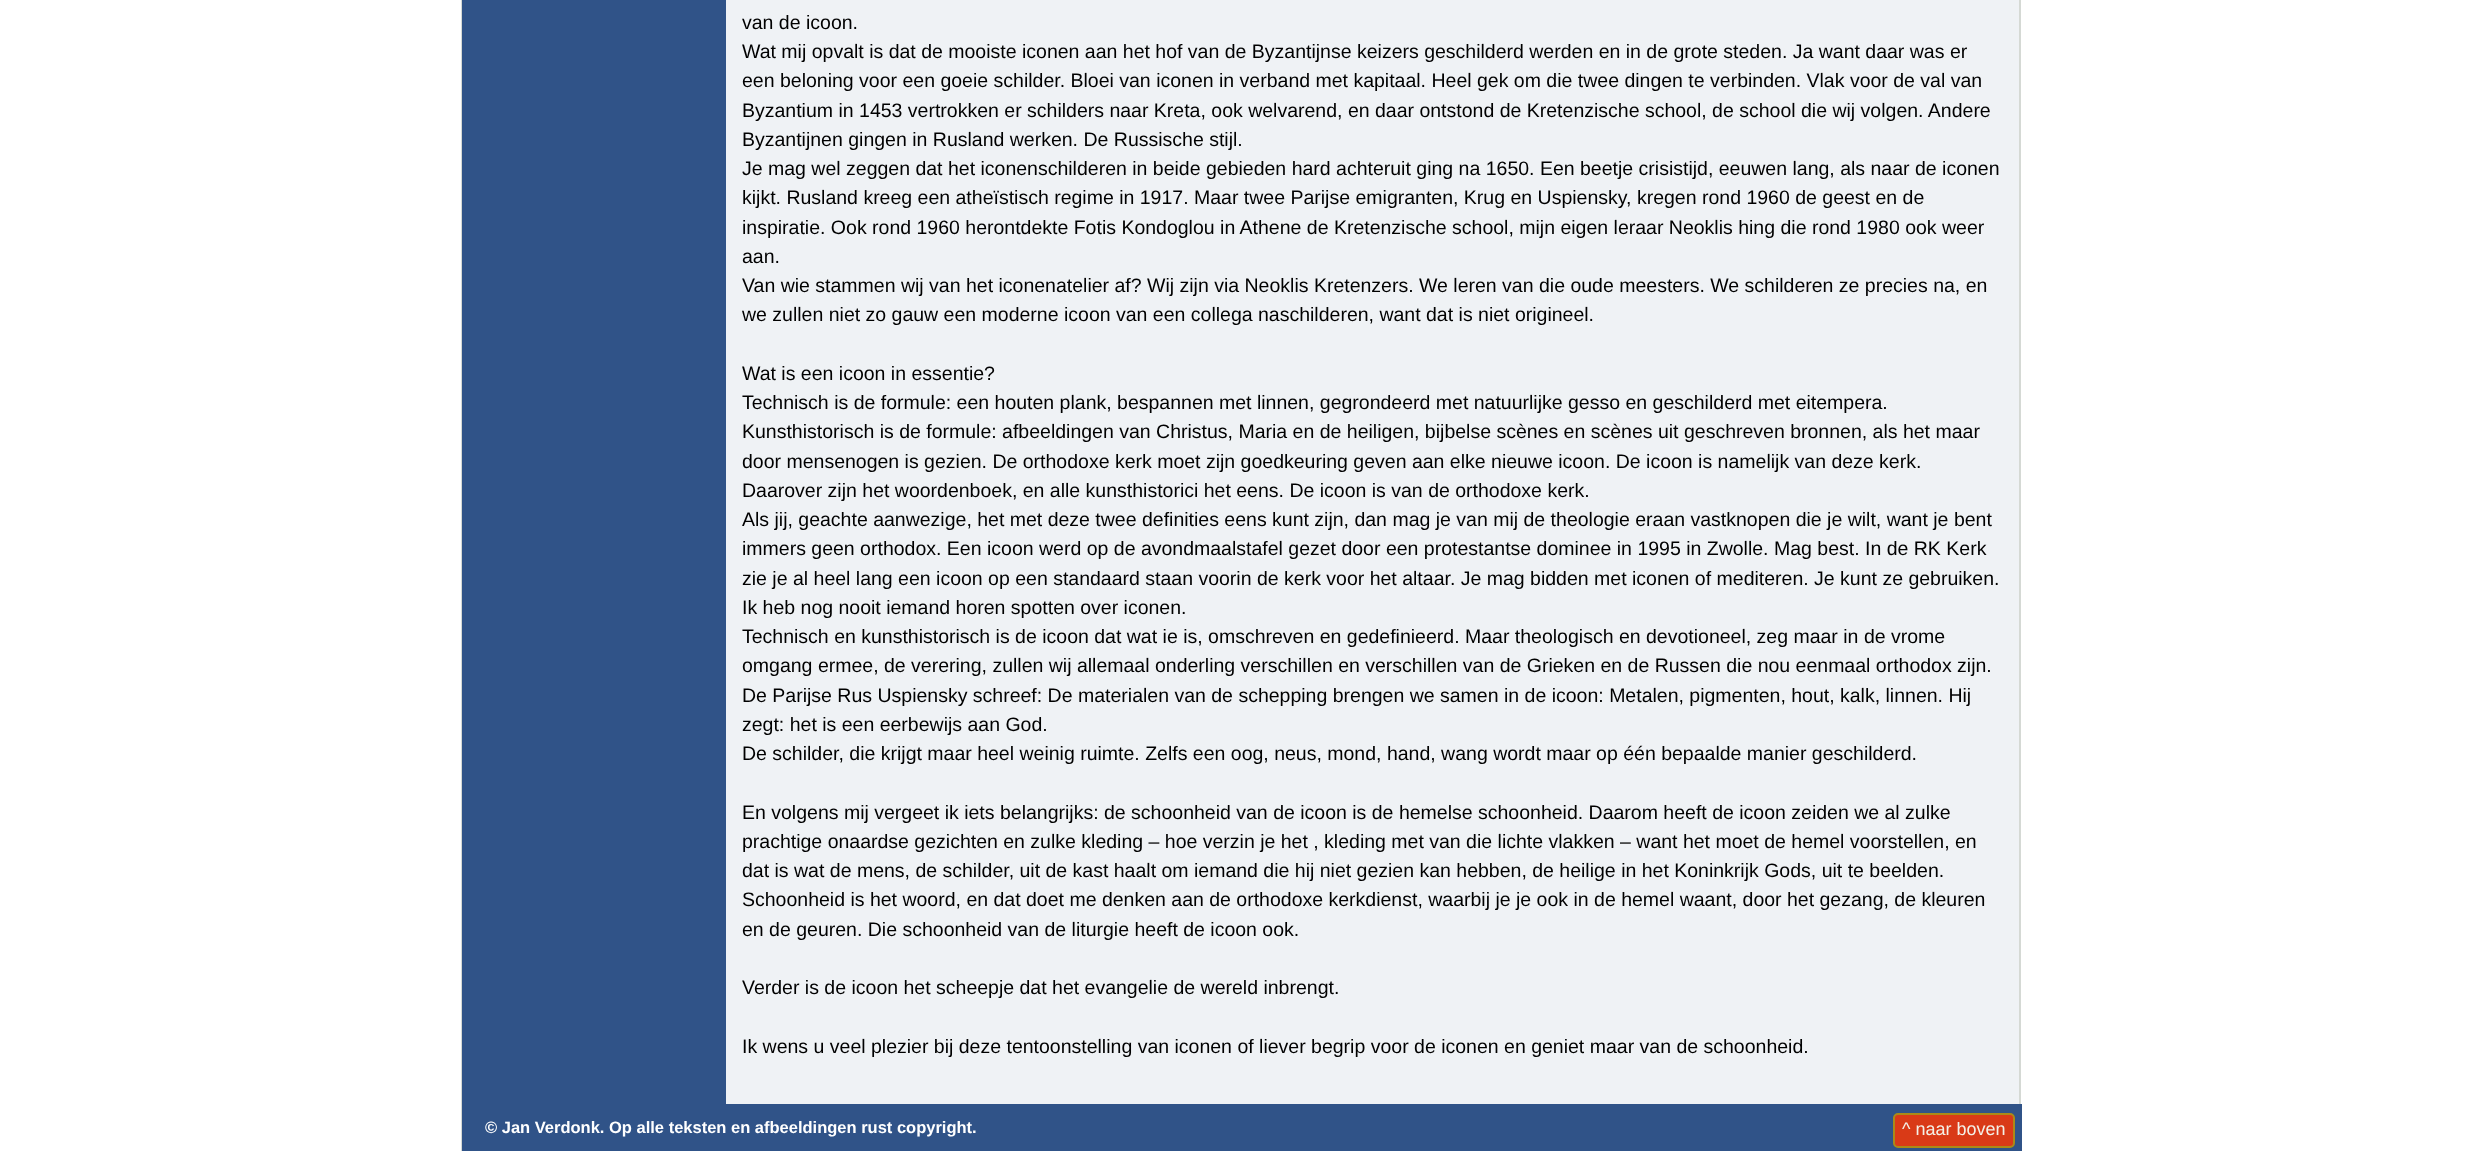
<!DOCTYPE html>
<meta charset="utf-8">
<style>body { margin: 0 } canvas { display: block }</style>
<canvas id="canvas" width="2481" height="1151"></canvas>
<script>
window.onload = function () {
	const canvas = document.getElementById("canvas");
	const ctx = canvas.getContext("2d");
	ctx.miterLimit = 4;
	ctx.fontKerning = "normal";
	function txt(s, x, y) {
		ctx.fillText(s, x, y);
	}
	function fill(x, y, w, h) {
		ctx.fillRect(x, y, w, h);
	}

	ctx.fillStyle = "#FFFFFF";
	fill(0, 0, 2481, 1151);
	ctx.fillStyle = "#EFF2F5";
	fill(726, 0, 1293, 1104);
	ctx.fillStyle = "#D5D9D4";
	fill(2019, 0, 2, 1104);
	fill(461, 0, 1, 1151);
	ctx.fillStyle = "#305388";
	fill(462, 0, 264, 1104);
	fill(462, 1104, 1560, 47);
	ctx.fillStyle = "#D93A17";
	ctx.beginPath();
	ctx.roundRect(1894, 1114, 120, 33, 4);
	ctx.fill();
	ctx.strokeStyle = "#AA8A18";
	ctx.lineWidth = 2;
	ctx.stroke();
	ctx.font = "19.5px Liberation Sans";
	ctx.fillStyle = "#000000";
	txt("van de icoon.", 742, 29);
	txt("Wat mij opvalt is dat de mooiste iconen aan het hof van de Byzantijnse keizers geschilderd werden en in de grote steden. Ja want daar was er", 742, 58);
	txt("een beloning voor een goeie schilder. Bloei van iconen in verband met kapitaal. Heel gek om die twee dingen te verbinden. Vlak voor de val van", 742, 87);
	txt("Byzantium in 1453 vertrokken er schilders naar Kreta, ook welvarend, en daar ontstond de Kretenzische school, de school die wij volgen. Andere", 742, 117);
	txt("Byzantijnen gingen in Rusland werken. De Russische stijl.", 742, 146);
	txt("Je mag wel zeggen dat het iconenschilderen in beide gebieden hard achteruit ging na 1650. Een beetje crisistijd, eeuwen lang, als naar de iconen", 742, 175);
	txt("kijkt. Rusland kreeg een atheïstisch regime in 1917. Maar twee Parijse emigranten, Krug en Uspiensky, kregen rond 1960 de geest en de", 742, 204);
	txt("inspiratie. Ook rond 1960 herontdekte Fotis Kondoglou in Athene de Kretenzische school, mijn eigen leraar Neoklis hing die rond 1980 ook weer", 742, 234);
	txt("aan.", 742, 263);
	txt("Van wie stammen wij van het iconenatelier af? Wij zijn via Neoklis Kretenzers. We leren van die oude meesters. We schilderen ze precies na, en", 742, 292);
	txt("we zullen niet zo gauw een moderne icoon van een collega naschilderen, want dat is niet origineel.", 742, 321);
	txt("Wat is een icoon in essentie?", 742, 380);
	txt("Technisch is de formule: een houten plank, bespannen met linnen, gegrondeerd met natuurlijke gesso en geschilderd met eitempera.", 742, 409);
	txt("Kunsthistorisch is de formule: afbeeldingen van Christus, Maria en de heiligen, bijbelse scènes en scènes uit geschreven bronnen, als het maar", 742, 438);
	txt("door mensenogen is gezien. De orthodoxe kerk moet zijn goedkeuring geven aan elke nieuwe icoon. De icoon is namelijk van deze kerk.", 742, 468);
	txt("Daarover zijn het woordenboek, en alle kunsthistorici het eens. De icoon is van de orthodoxe kerk.", 742, 497);
	txt("Als jij, geachte aanwezige, het met deze twee definities eens kunt zijn, dan mag je van mij de theologie eraan vastknopen die je wilt, want je bent", 742, 526);
	txt("immers geen orthodox. Een icoon werd op de avondmaalstafel gezet door een protestantse dominee in 1995 in Zwolle. Mag best. In de RK Kerk", 742, 555);
	txt("zie je al heel lang een icoon op een standaard staan voorin de kerk voor het altaar. Je mag bidden met iconen of mediteren. Je kunt ze gebruiken.", 742, 585);
	txt("Ik heb nog nooit iemand horen spotten over iconen.", 742, 614);
	txt("Technisch en kunsthistorisch is de icoon dat wat ie is, omschreven en gedefinieerd. Maar theologisch en devotioneel, zeg maar in de vrome", 742, 643);
	txt("omgang ermee, de verering, zullen wij allemaal onderling verschillen en verschillen van de Grieken en de Russen die nou eenmaal orthodox zijn.", 742, 672);
	txt("De Parijse Rus Uspiensky schreef: De materialen van de schepping brengen we samen in de icoon: Metalen, pigmenten, hout, kalk, linnen. Hij", 742, 702);
	txt("zegt: het is een eerbewijs aan God.", 742, 731);
	txt("De schilder, die krijgt maar heel weinig ruimte. Zelfs een oog, neus, mond, hand, wang wordt maar op één bepaalde manier geschilderd.", 742, 760);
	txt("En volgens mij vergeet ik iets belangrijks: de schoonheid van de icoon is de hemelse schoonheid. Daarom heeft de icoon zeiden we al zulke", 742, 819);
	txt("prachtige onaardse gezichten en zulke kleding – hoe verzin je het , kleding met van die lichte vlakken – want het moet de hemel voorstellen, en", 742, 848);
	txt("dat is wat de mens, de schilder, uit de kast haalt om iemand die hij niet gezien kan hebben, de heilige in het Koninkrijk Gods, uit te beelden.", 742, 877);
	txt("Schoonheid is het woord, en dat doet me denken aan de orthodoxe kerkdienst, waarbij je je ook in de hemel waant, door het gezang, de kleuren", 742, 906);
	txt("en de geuren. Die schoonheid van de liturgie heeft de icoon ook.", 742, 936);
	txt("Verder is de icoon het scheepje dat het evangelie de wereld inbrengt.", 742, 994);
	txt("Ik wens u veel plezier bij deze tentoonstelling van iconen of liever begrip voor de iconen en geniet maar van de schoonheid.", 742, 1053);
	ctx.font = "bold 16.5px Liberation Sans";
	ctx.fillStyle = "#FFFFFF";
	txt("© Jan Verdonk. Op alle teksten en afbeeldingen rust copyright.", 485, 1133);
	ctx.font = "18px Liberation Sans";
	ctx.fillStyle = "#F3F1E7";
	txt("^ naar boven", 1902, 1135);
};
</script>
